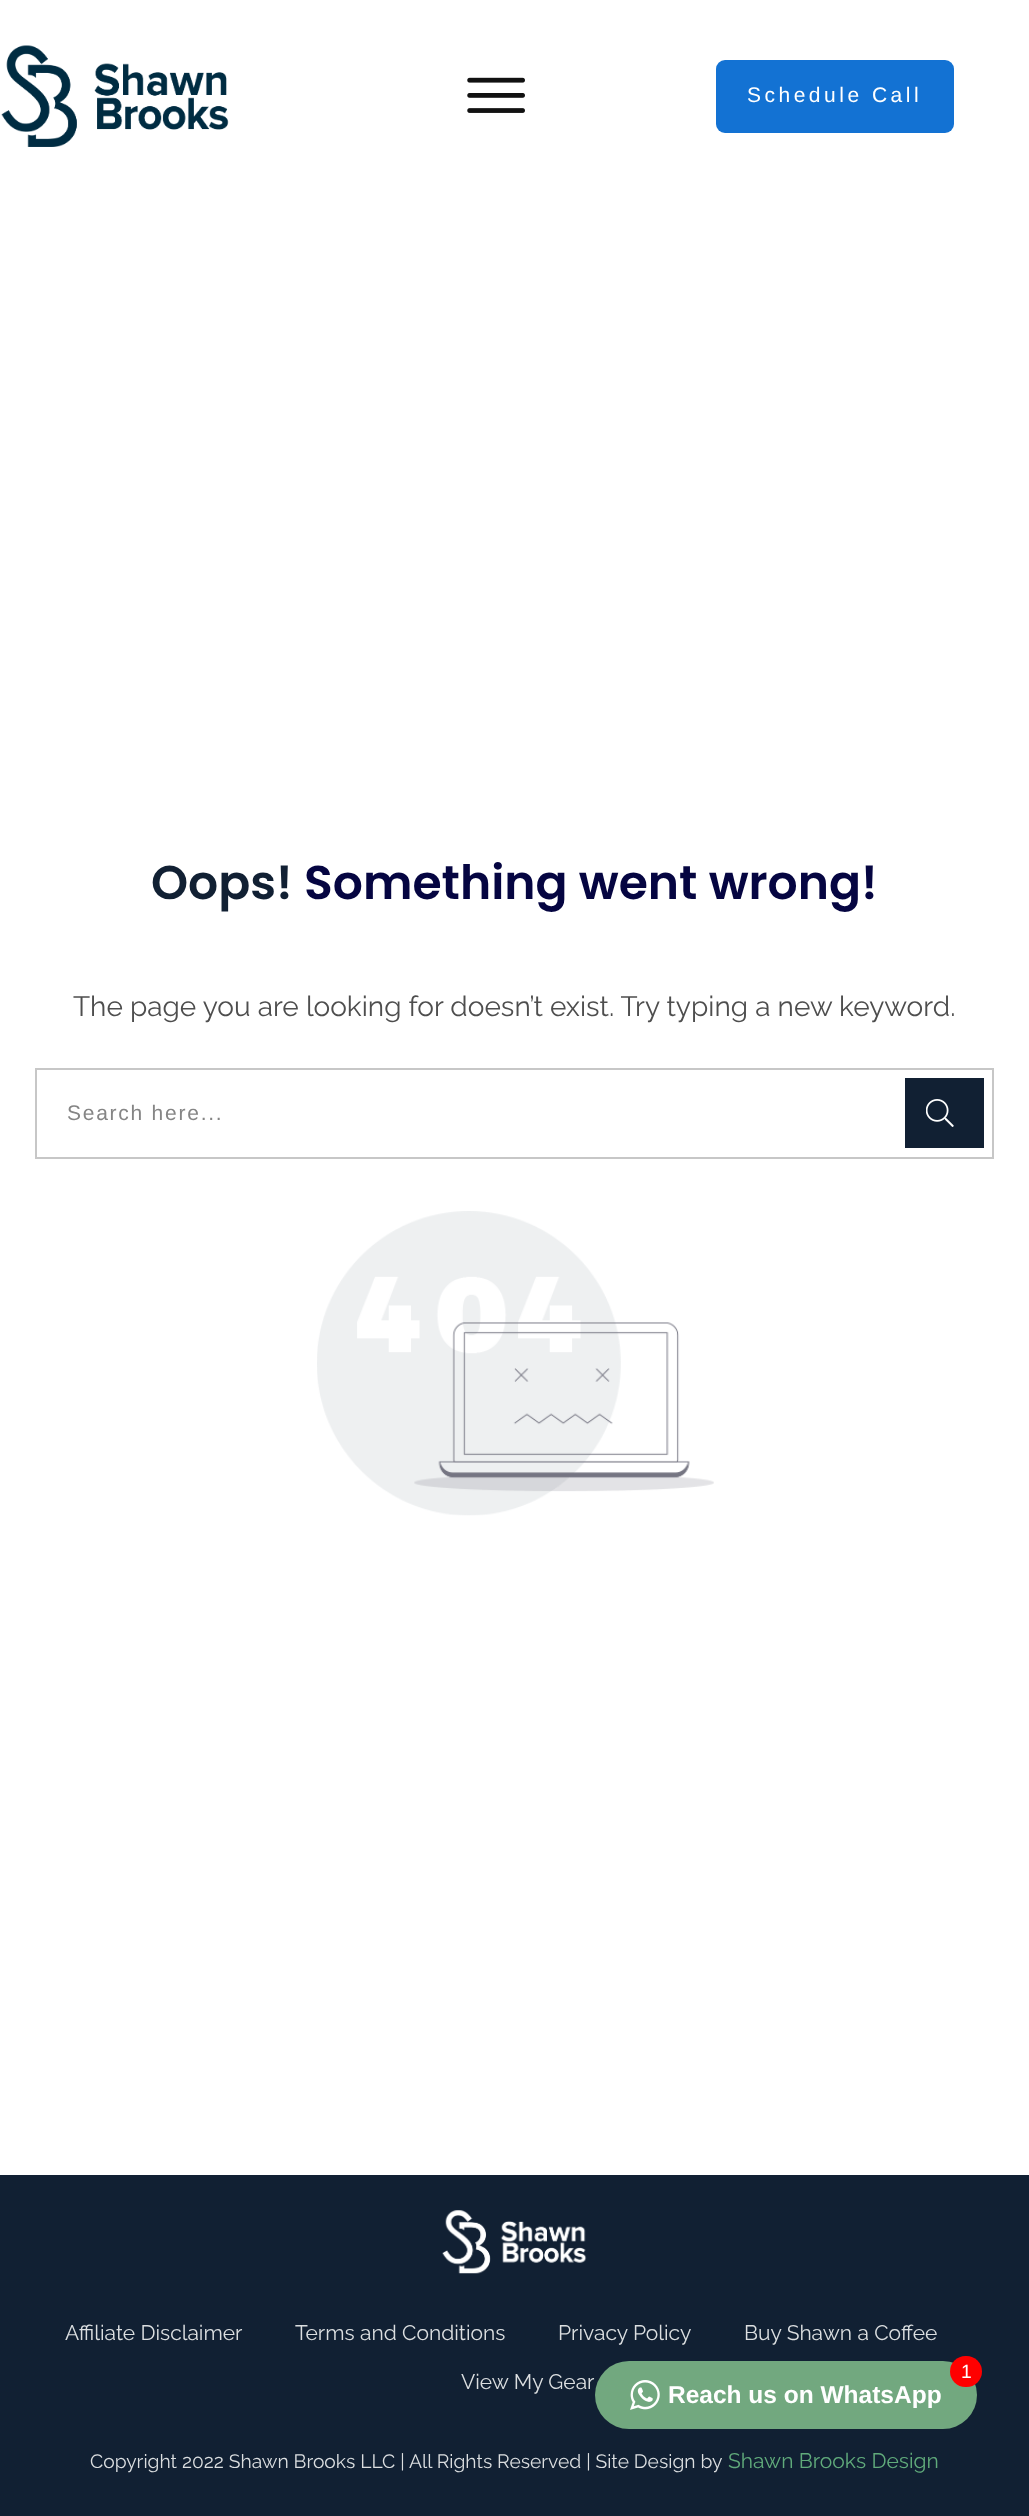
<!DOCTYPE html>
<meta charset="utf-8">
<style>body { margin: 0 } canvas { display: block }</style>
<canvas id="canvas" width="1029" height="2516"></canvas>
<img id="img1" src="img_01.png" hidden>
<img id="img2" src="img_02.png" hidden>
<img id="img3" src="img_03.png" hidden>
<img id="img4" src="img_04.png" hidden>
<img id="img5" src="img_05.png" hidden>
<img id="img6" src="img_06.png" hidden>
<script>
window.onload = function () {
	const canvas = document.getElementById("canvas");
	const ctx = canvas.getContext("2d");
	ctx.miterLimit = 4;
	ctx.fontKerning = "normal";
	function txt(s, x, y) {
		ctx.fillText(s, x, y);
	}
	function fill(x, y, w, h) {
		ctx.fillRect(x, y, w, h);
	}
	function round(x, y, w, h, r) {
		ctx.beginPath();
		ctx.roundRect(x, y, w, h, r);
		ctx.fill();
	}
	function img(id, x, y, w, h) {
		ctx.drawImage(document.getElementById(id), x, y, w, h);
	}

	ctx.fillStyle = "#FFFFFF";
	fill(0, 0, 1029, 2516);
	img("img1", 1, 45, 228, 102);
	img("img2", 467, 77, 58, 36);
	ctx.fillStyle = "#1372D3";
	round(716, 60, 238, 73, 9);
	ctx.strokeStyle = "#C7C7C7";
	ctx.lineWidth = 2;
	ctx.strokeRect(36, 1069, 957, 89);
	ctx.fillStyle = "#112033";
	fill(905, 1078, 79, 70);
	img("img3", 926, 1099, 28, 28);
	img("img4", 317, 1211, 397, 305);
	fill(0, 2175, 1029, 341);
	img("img5", 442, 2210, 145, 64);
	ctx.fillStyle = "#72A87F";
	round(595, 2361, 382, 68, 34);
	ctx.fillStyle = "#FF0000";
	round(950, 2356, 32, 31, 15.5);
	img("img6", 630, 2380, 30, 30);
	ctx.letterSpacing = "3.5px";
	ctx.font = "21px Liberation Sans";
	ctx.fillStyle = "#FFFFFF";
	txt("Schedule Call", 747, 102);
	ctx.letterSpacing = "0px";
	ctx.font = "600 47.25px Poppins";
	ctx.fillStyle = "#112033";
	txt("Oops!", 151, 899);
	ctx.fillStyle = "#050541";
	txt("Something went wrong!", 304, 899);
	ctx.font = "28px Raleway";
	ctx.fillStyle = "#4E4E4E";
	txt("The page you are looking for doesn’t exist. Try typing a new keyword.", 73, 1016);
	ctx.letterSpacing = "1.75px";
	ctx.font = "21px Liberation Sans";
	ctx.fillStyle = "#858585";
	txt("Search here...", 67, 1120);
	ctx.letterSpacing = "0px";
	ctx.font = "21px Raleway";
	ctx.fillStyle = "#DBDEE0";
	txt("Affiliate Disclaimer", 65, 2340);
	txt("Terms and Conditions", 295, 2340);
	txt("Privacy Policy", 558, 2340);
	txt("Buy Shawn a Coffee", 744, 2340);
	txt("View My Gear", 461, 2389);
	ctx.font = "19.25px Raleway";
	txt("Copyright 2022 Shawn Brooks LLC | All Rights Reserved | Site Design by", 90, 2468);
	ctx.font = "21px Raleway";
	ctx.fillStyle = "#60AA7B";
	txt("Shawn Brooks Design", 728, 2468);
	ctx.font = "19.25px Liberation Sans";
	ctx.fillStyle = "#FFFFFF";
	txt("1", 961, 2378);
	ctx.font = "bold 24.5px Liberation Sans";
	txt("Reach us on WhatsApp", 668, 2403);
};
</script>
